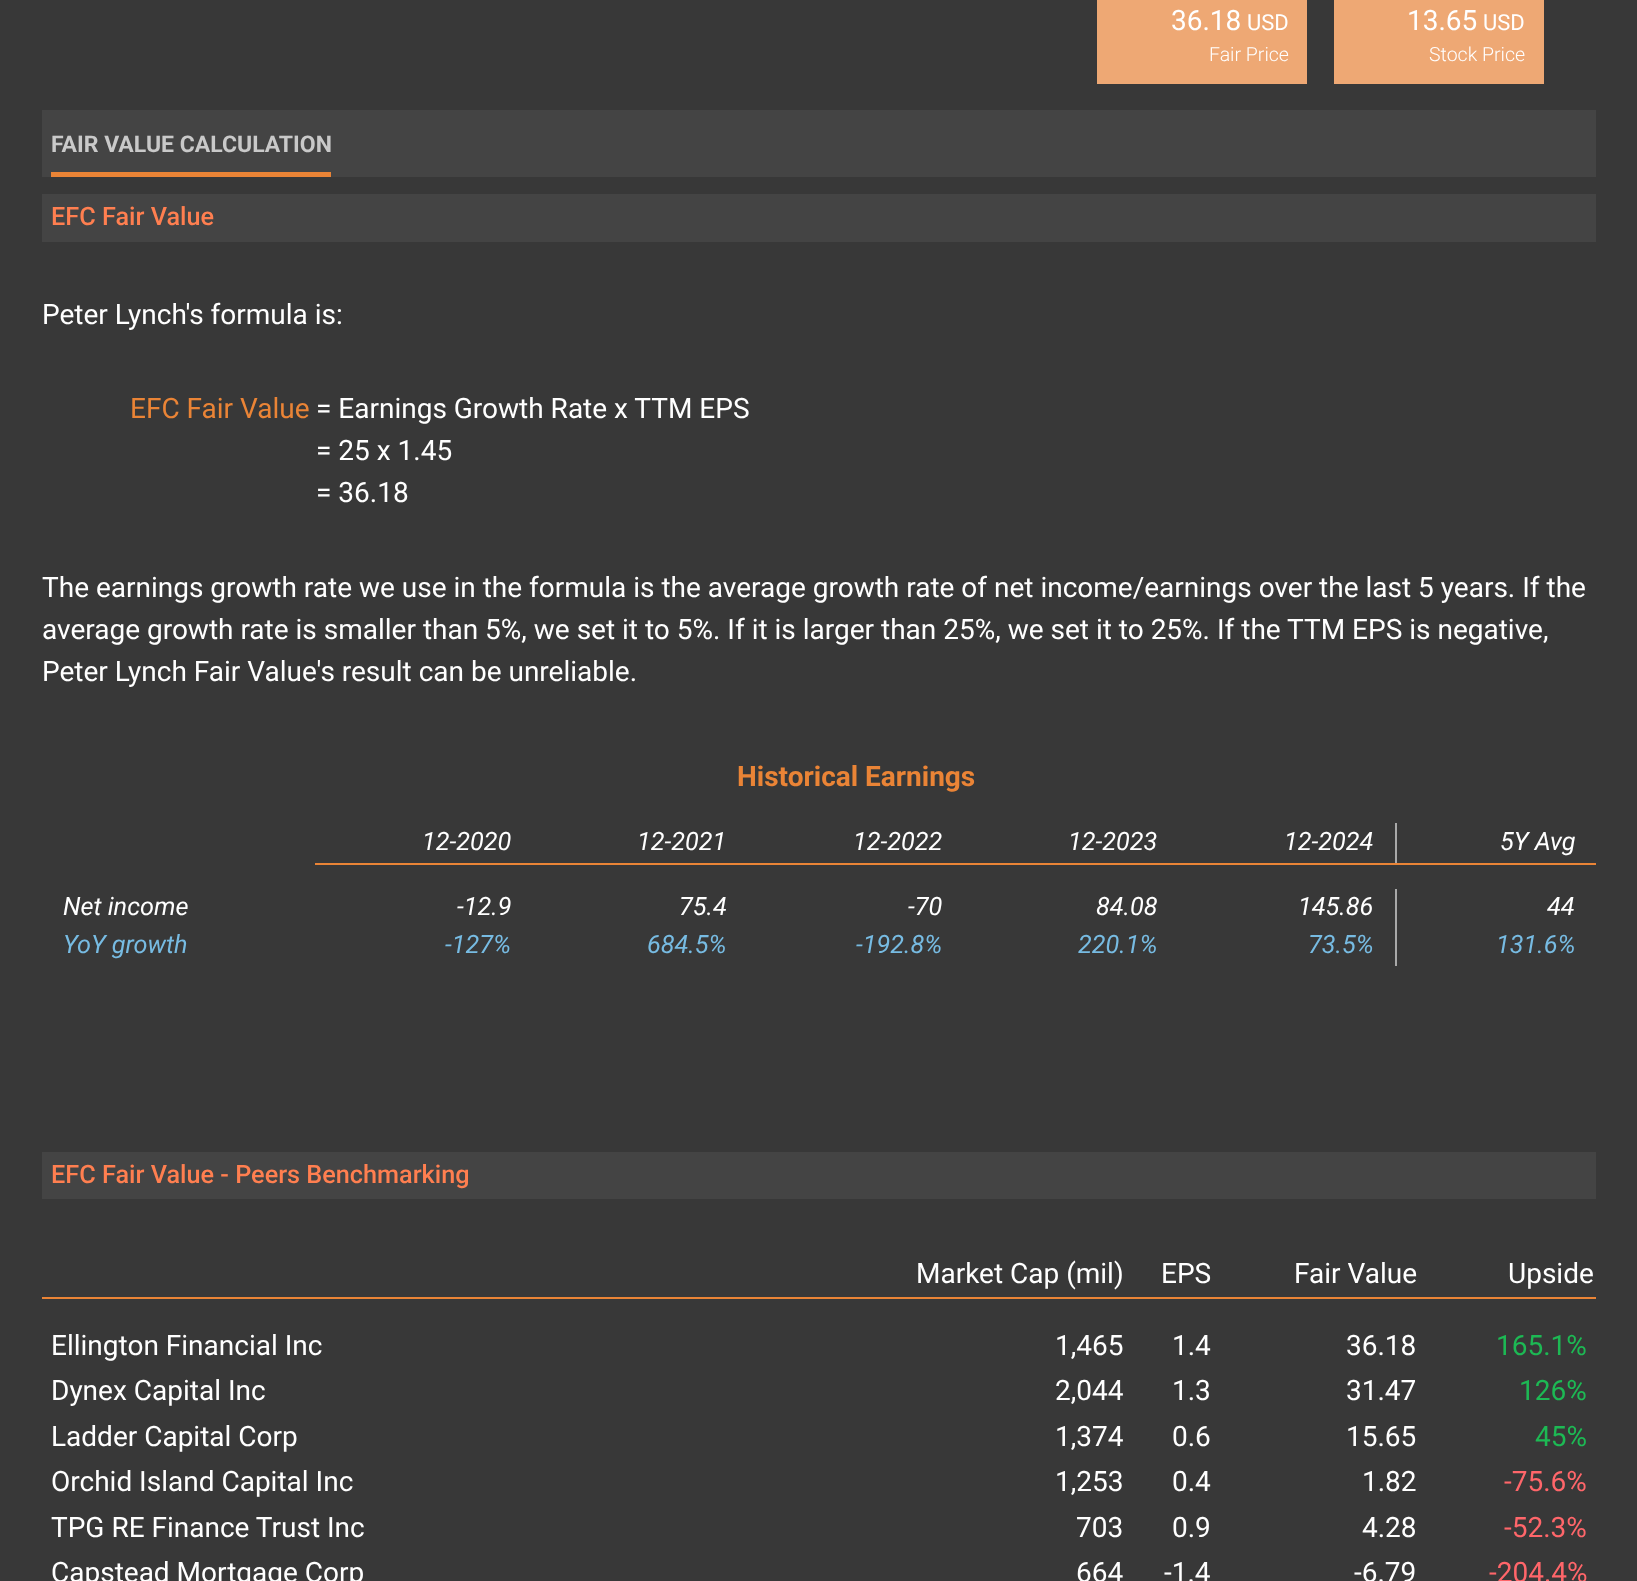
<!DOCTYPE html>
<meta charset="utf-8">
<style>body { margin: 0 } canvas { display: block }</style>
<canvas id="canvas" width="1637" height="1581"></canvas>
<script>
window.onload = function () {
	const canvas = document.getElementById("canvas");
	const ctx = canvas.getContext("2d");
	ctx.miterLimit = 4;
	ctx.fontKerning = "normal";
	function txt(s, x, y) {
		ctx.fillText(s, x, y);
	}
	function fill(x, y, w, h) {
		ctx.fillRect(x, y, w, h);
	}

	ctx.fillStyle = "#383838";
	fill(0, 0, 1637, 1581);
	ctx.fillStyle = "#EEA874";
	fill(1097, 0, 210, 84);
	fill(1334, 0, 210, 84);
	ctx.fillStyle = "#444444";
	fill(42, 110, 1554, 67);
	ctx.fillStyle = "#EA8436";
	fill(51, 172, 280, 5);
	ctx.fillStyle = "#444444";
	fill(42, 194, 1554, 48);
	ctx.fillStyle = "#EA8436";
	fill(1395, 863, 201, 2);
	ctx.fillStyle = "#A9A9A9";
	fill(1395, 823, 2, 42);
	ctx.fillStyle = "#EA8436";
	fill(315, 863, 1082, 2);
	ctx.fillStyle = "#A9A9A9";
	fill(1395, 889, 2, 77);
	ctx.fillStyle = "#444444";
	fill(42, 1152, 1554, 47);
	ctx.fillStyle = "#EA8436";
	fill(42, 1297, 1554, 2);
	ctx.font = "28px Roboto";
	ctx.fillStyle = "#FFFFFF";
	txt("36.18", 1171, 30);
	ctx.font = "22px Roboto";
	txt("USD", 1247, 30);
	ctx.font = "300 19.5px Roboto";
	txt("Fair Price", 1209, 61);
	ctx.font = "28px Roboto";
	txt("13.65", 1407, 30);
	ctx.font = "22px Roboto";
	txt("USD", 1483, 30);
	ctx.font = "300 19.5px Roboto";
	txt("Stock Price", 1429, 61);
	ctx.font = "bold 23px Roboto";
	ctx.fillStyle = "#C9C9C9";
	txt("FAIR VALUE CALCULATION", 51, 152);
	ctx.font = "500 25.25px Roboto";
	ctx.fillStyle = "#FF7F50";
	txt("EFC Fair Value", 51, 225);
	ctx.font = "28px Roboto";
	ctx.fillStyle = "#FFFFFF";
	txt("Peter Lynch's formula is:", 42, 324);
	ctx.fillStyle = "#EA8436";
	txt("EFC Fair Value", 130, 418);
	ctx.fillStyle = "#FFFFFF";
	txt("= Earnings Growth Rate x TTM EPS", 316, 418);
	txt("= 25 x 1.45", 316, 460);
	txt("= 36.18", 316, 502);
	txt("The earnings growth rate we use in the formula is the average growth rate of net income/earnings over the last 5 years. If the", 42, 597);
	txt("average growth rate is smaller than 5%, we set it to 5%. If it is larger than 25%, we set it to 25%. If the TTM EPS is negative,", 42, 639);
	txt("Peter Lynch Fair Value's result can be unreliable.", 42, 681);
	ctx.font = "bold 28px Roboto";
	ctx.fillStyle = "#EA8436";
	txt("Historical Earnings", 737, 786);
	ctx.font = "italic 25.25px Roboto";
	ctx.fillStyle = "#FFFFFF";
	txt("12-2020", 422, 850);
	txt("12-2021", 637, 850);
	txt("12-2022", 853, 850);
	txt("12-2023", 1068, 850);
	txt("12-2024", 1284, 850);
	txt("5Y Avg", 1500, 850);
	txt("Net income", 63, 915);
	txt("-12.9", 457, 915);
	txt("75.4", 679, 915);
	txt("-70", 908, 915);
	txt("84.08", 1096, 915);
	txt("145.86", 1298, 915);
	txt("44", 1547, 915);
	ctx.fillStyle = "#77BBE2";
	txt("YoY growth", 63, 953);
	txt("-127%", 445, 953);
	txt("684.5%", 647, 953);
	txt("-192.8%", 856, 953);
	txt("220.1%", 1078, 953);
	txt("73.5%", 1308, 953);
	txt("131.6%", 1496, 953);
	ctx.font = "500 25.25px Roboto";
	ctx.fillStyle = "#FF7F50";
	txt("EFC Fair Value - Peers Benchmarking", 51, 1183);
	ctx.font = "28px Roboto";
	ctx.fillStyle = "#FFFFFF";
	txt("Market Cap (mil)", 916, 1283);
	txt("EPS", 1161, 1283);
	txt("Fair Value", 1294, 1283);
	txt("Upside", 1508, 1283);
	txt("Ellington Financial Inc", 51, 1355);
	txt("1,465", 1055, 1355);
	txt("1.4", 1172, 1355);
	txt("36.18", 1346, 1355);
	ctx.fillStyle = "#1DB954";
	txt("165.1%", 1496, 1355);
	ctx.fillStyle = "#FFFFFF";
	txt("Dynex Capital Inc", 51, 1400);
	txt("2,044", 1055, 1400);
	txt("1.3", 1172, 1400);
	txt("31.47", 1346, 1400);
	ctx.fillStyle = "#1DB954";
	txt("126%", 1519, 1400);
	ctx.fillStyle = "#FFFFFF";
	txt("Ladder Capital Corp", 51, 1446);
	txt("1,374", 1055, 1446);
	txt("0.6", 1172, 1446);
	txt("15.65", 1346, 1446);
	ctx.fillStyle = "#1DB954";
	txt("45%", 1535, 1446);
	ctx.fillStyle = "#FFFFFF";
	txt("Orchid Island Capital Inc", 51, 1491);
	txt("1,253", 1055, 1491);
	txt("0.4", 1172, 1491);
	txt("1.82", 1362, 1491);
	ctx.fillStyle = "#FF666A";
	txt("-75.6%", 1504, 1491);
	ctx.fillStyle = "#FFFFFF";
	txt("TPG RE Finance Trust Inc", 51, 1537);
	txt("703", 1076, 1537);
	txt("0.9", 1172, 1537);
	txt("4.28", 1362, 1537);
	ctx.fillStyle = "#FF666A";
	txt("-52.3%", 1504, 1537);
	ctx.fillStyle = "#FFFFFF";
	txt("Capstead Mortgage Corp", 51, 1582);
	txt("664", 1076, 1582);
	txt("-1.4", 1164, 1582);
	txt("-6.79", 1354, 1582);
	ctx.fillStyle = "#FF666A";
	txt("-204.4%", 1489, 1582);
};
</script>
